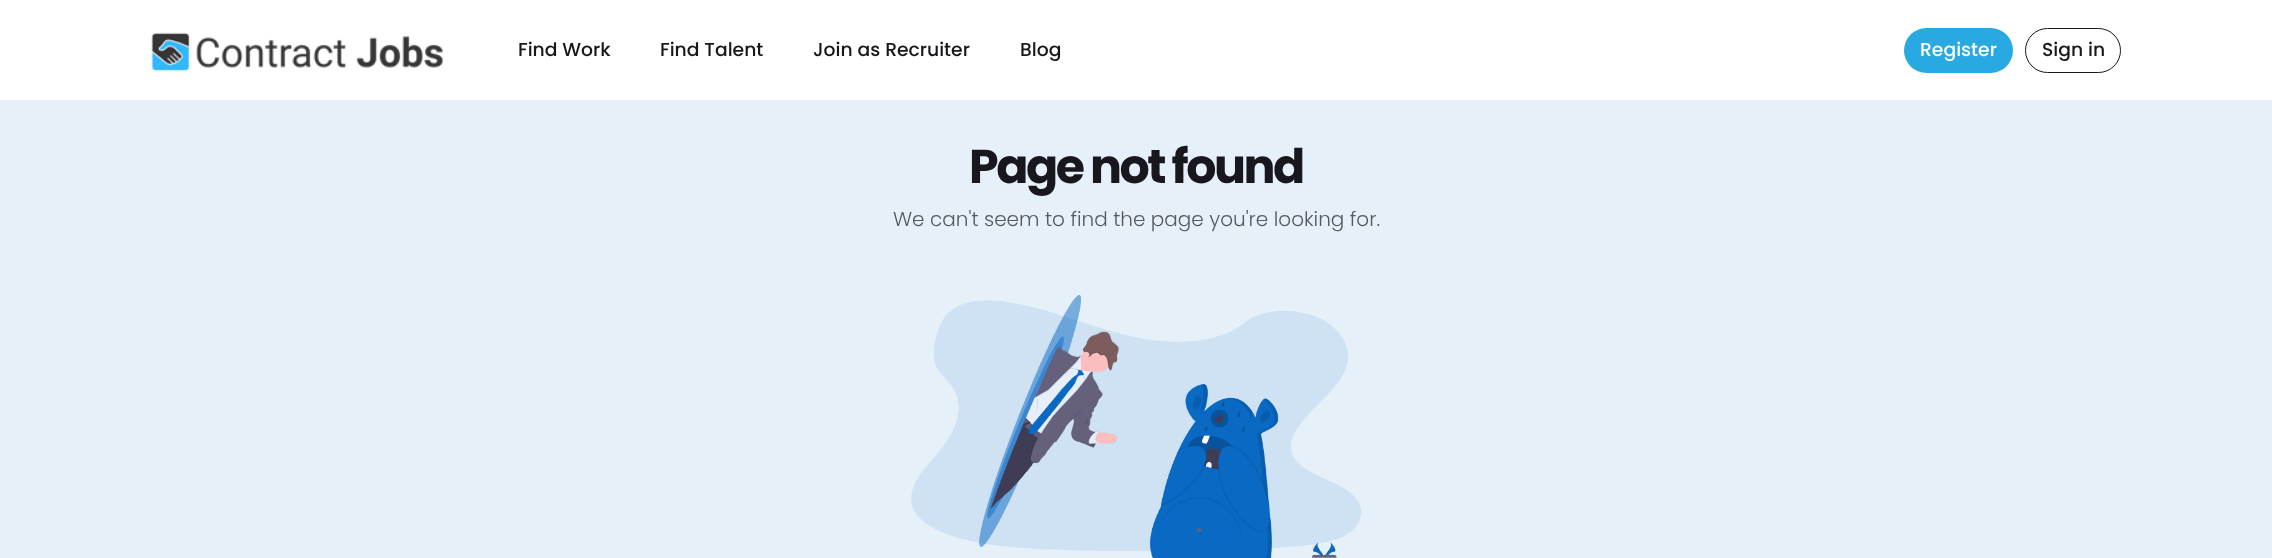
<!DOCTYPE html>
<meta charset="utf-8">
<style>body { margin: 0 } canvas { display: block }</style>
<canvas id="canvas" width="2272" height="558"></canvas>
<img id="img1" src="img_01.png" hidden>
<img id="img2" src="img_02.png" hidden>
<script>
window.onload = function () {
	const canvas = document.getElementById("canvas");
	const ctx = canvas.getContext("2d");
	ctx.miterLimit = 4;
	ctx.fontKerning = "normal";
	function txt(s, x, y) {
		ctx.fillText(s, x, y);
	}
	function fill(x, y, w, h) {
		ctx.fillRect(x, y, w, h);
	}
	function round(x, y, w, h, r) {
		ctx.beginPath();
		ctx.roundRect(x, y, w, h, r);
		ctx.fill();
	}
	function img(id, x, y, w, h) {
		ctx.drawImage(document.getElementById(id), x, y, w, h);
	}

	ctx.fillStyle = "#FFFFFF";
	fill(0, 0, 2272, 558);
	img("img1", 151, 32, 292, 40);
	ctx.fillStyle = "#28A9E2";
	round(1904, 28, 109, 45, 22.5);
	ctx.beginPath();
	ctx.roundRect(2025.5, 28.5, 95, 44, 22);
	ctx.strokeStyle = "#17171D";
	ctx.stroke();
	ctx.fillStyle = "#E6F0F9";
	fill(0, 100, 2272, 458);
	img("img2", 911, 295, 450, 263);
	ctx.font = "500 18.75px Poppins";
	ctx.fillStyle = "#17171D";
	txt("Find Work", 518, 56);
	txt("Find Talent", 660, 56);
	txt("Join as Recruiter", 813, 56);
	txt("Blog", 1020, 56);
	ctx.fillStyle = "#FFFFFF";
	txt("Register", 1920, 56);
	ctx.fillStyle = "#17171D";
	txt("Sign in", 2042, 56);
	ctx.letterSpacing = "-2.5px";
	ctx.font = "bold 47.5px Poppins";
	txt("Page not found", 969, 183);
	ctx.letterSpacing = "0px";
	ctx.font = "300 20px Poppins";
	ctx.fillStyle = "#55585F";
	txt("We can't seem to find the page you're looking for.", 893, 226);
};
</script>
